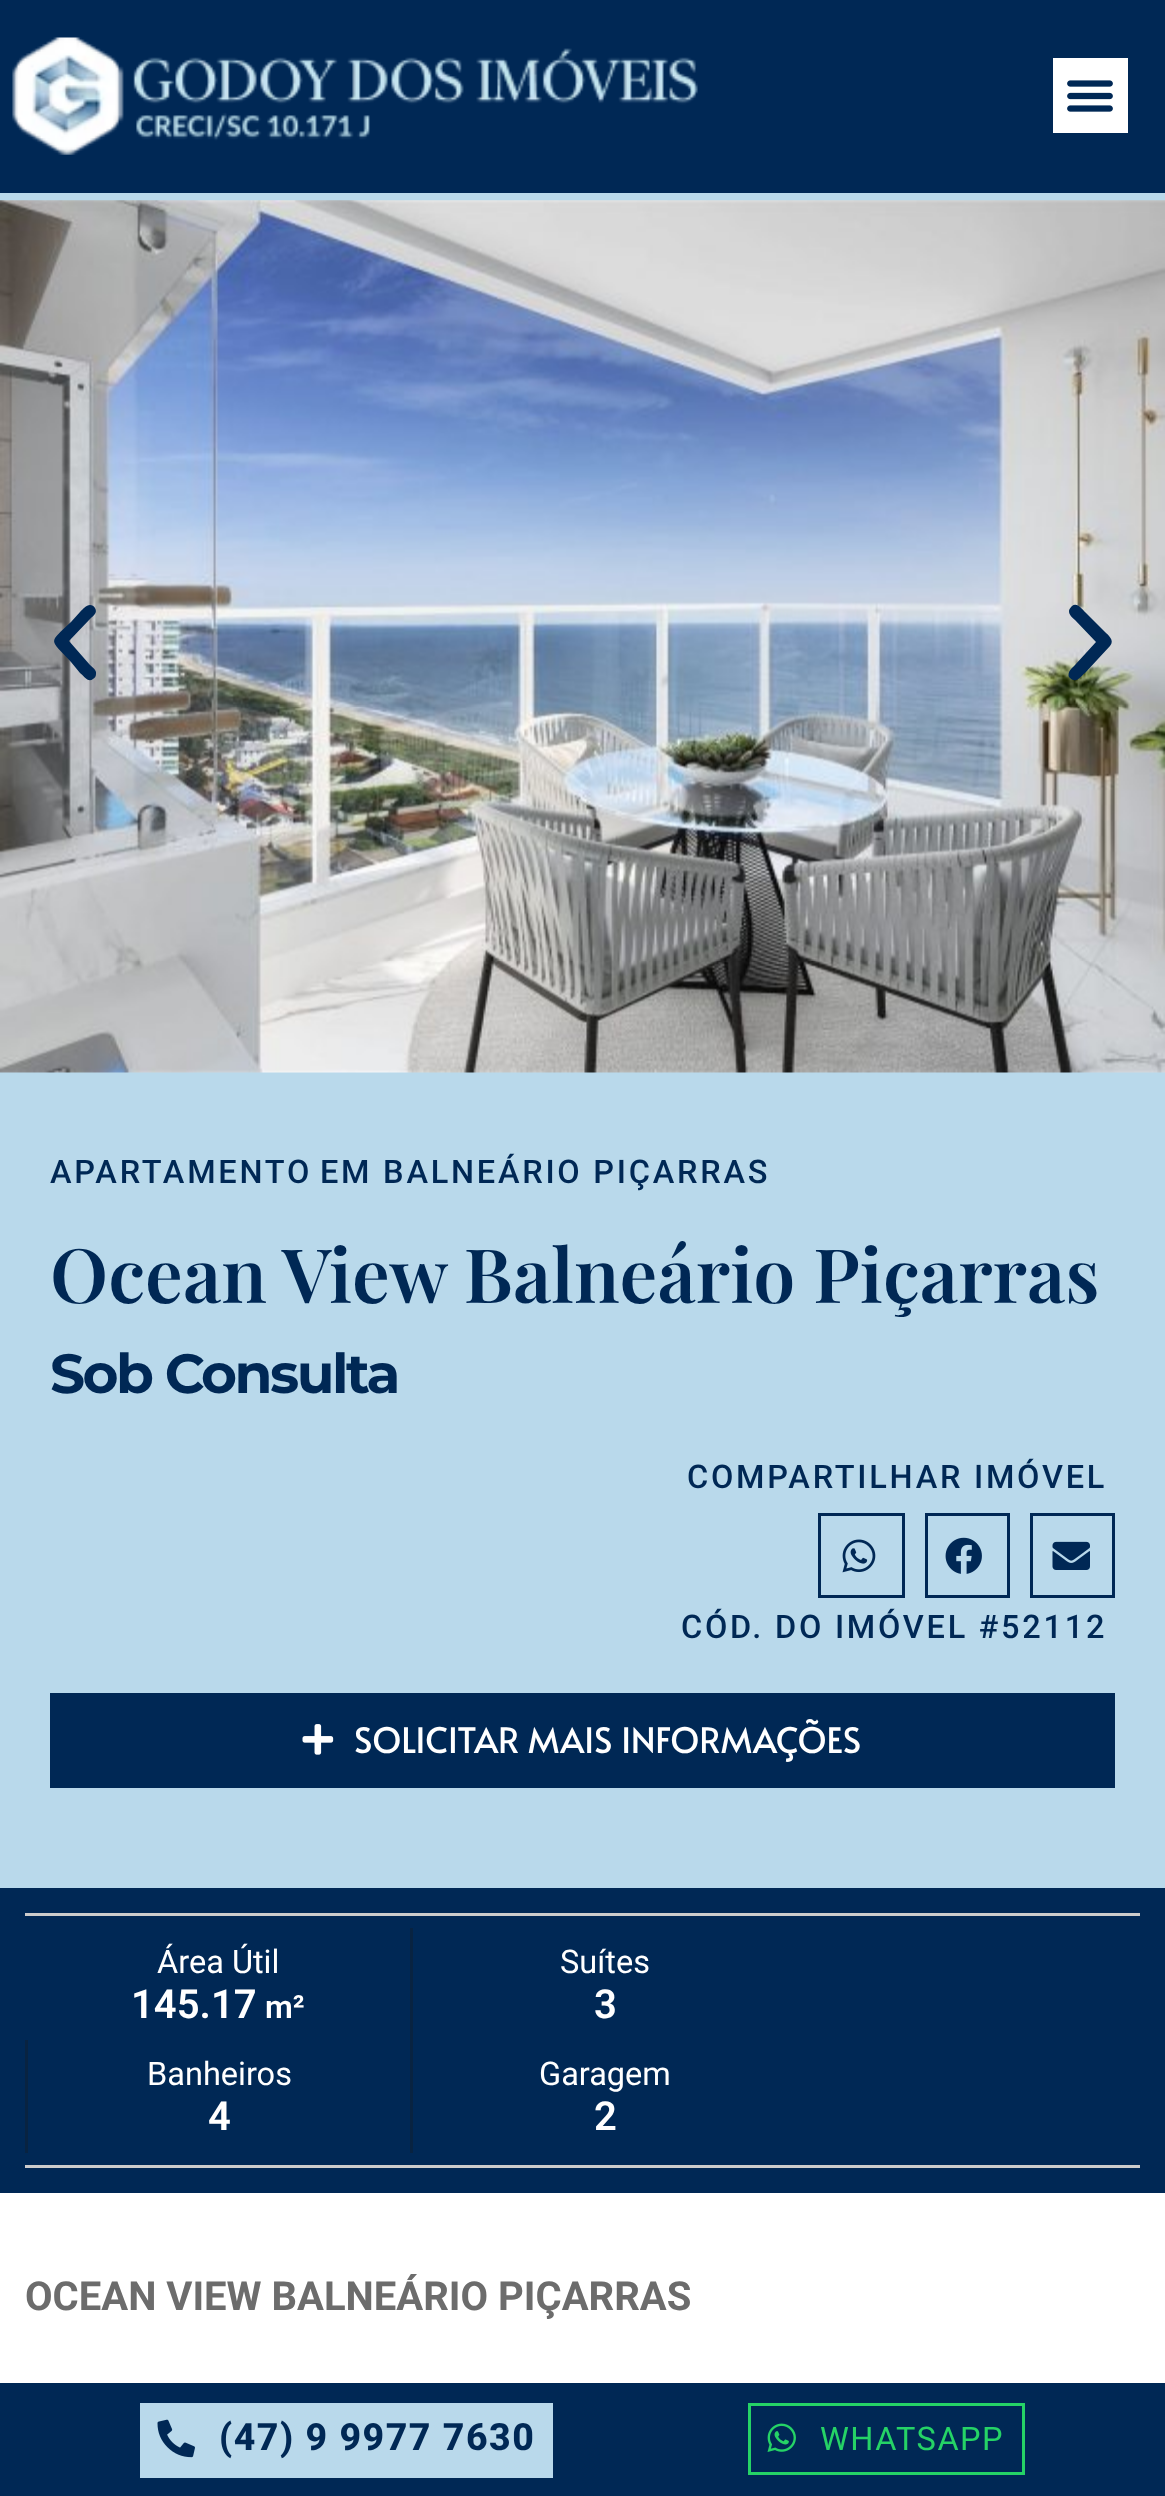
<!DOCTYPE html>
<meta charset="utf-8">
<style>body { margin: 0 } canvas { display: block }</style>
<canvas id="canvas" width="1165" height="2496"></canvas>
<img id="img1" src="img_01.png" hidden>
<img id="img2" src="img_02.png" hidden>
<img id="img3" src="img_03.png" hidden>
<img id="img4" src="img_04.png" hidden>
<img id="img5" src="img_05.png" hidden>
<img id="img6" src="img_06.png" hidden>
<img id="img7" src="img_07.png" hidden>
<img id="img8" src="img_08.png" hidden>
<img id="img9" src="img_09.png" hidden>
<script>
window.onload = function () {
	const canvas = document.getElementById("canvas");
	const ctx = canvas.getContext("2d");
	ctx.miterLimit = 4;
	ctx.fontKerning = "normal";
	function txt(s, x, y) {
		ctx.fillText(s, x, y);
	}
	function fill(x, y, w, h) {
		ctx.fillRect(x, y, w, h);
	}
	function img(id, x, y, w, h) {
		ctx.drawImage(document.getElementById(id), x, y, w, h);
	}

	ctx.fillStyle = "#FFFFFF";
	fill(0, 0, 1165, 2496);
	ctx.fillStyle = "#B9D9EB";
	fill(0, 193, 1165, 1695);
	img("img1", 0, 200, 1165, 873);
	ctx.fillStyle = "#002855";
	ctx.beginPath();
	ctx.moveTo(90, 605);
	ctx.bezierCurveTo(86, 605, 83, 609, 80, 612);
	ctx.lineTo(71, 622);
	ctx.bezierCurveTo(48, 644, 49, 638, 71, 662);
	ctx.lineTo(80, 673);
	ctx.bezierCurveTo(84, 676, 88, 683, 93, 679);
	ctx.bezierCurveTo(95, 678, 96, 676, 96, 674);
	ctx.bezierCurveTo(97, 670, 92, 667, 90, 665);
	ctx.lineTo(69, 641);
	ctx.lineTo(90, 619);
	ctx.bezierCurveTo(93, 616, 98, 613, 95, 608);
	ctx.bezierCurveTo(94, 606, 92, 605, 90, 605);
	ctx.closePath();
	ctx.fill();
	ctx.beginPath();
	ctx.moveTo(1110, 646);
	ctx.bezierCurveTo(1115, 640, 1108, 635, 1105, 632);
	ctx.lineTo(1085, 612);
	ctx.bezierCurveTo(1082, 609, 1077, 602, 1072, 606);
	ctx.bezierCurveTo(1071, 607, 1069, 609, 1069, 611);
	ctx.bezierCurveTo(1069, 615, 1072, 617, 1075, 620);
	ctx.lineTo(1096, 642);
	ctx.lineTo(1075, 665);
	ctx.bezierCurveTo(1072, 668, 1067, 672, 1069, 677);
	ctx.bezierCurveTo(1070, 678, 1071, 679, 1073, 680);
	ctx.bezierCurveTo(1079, 681, 1081, 676, 1085, 673);
	ctx.closePath();
	ctx.fill();
	ctx.strokeStyle = "#002855";
	ctx.lineWidth = 3;
	ctx.strokeRect(819.5, 1514.5, 84, 82);
	img("img2", 842, 1539, 34, 34);
	ctx.strokeRect(926.5, 1514.5, 82, 82);
	img("img3", 945, 1537, 37, 37);
	ctx.strokeRect(1031.5, 1514.5, 82, 82);
	img("img4", 1052, 1541, 38, 29);
	fill(50, 1693, 1065, 95);
	img("img5", 302, 1724, 32, 31);
	fill(0, 1888, 1165, 305);
	ctx.fillStyle = "#CCCCCC";
	fill(25, 1913, 1115, 3);
	fill(25, 2165, 1115, 3);
	ctx.fillStyle = "#082341";
	fill(410, 1928, 3, 225);
	fill(25, 2040, 3, 113);
	ctx.fillStyle = "#002855";
	fill(0, 0, 1165, 193);
	img("img6", 12, 37, 686, 118);
	ctx.fillStyle = "#FFFFFF";
	fill(1053, 58, 75, 75);
	img("img7", 1067, 80, 46, 32);
	ctx.fillStyle = "#002855";
	fill(0, 2383, 1165, 113);
	ctx.fillStyle = "#B9D9EB";
	fill(140, 2403, 413, 75);
	img("img8", 157, 2419, 38, 39);
	ctx.strokeStyle = "#25D366";
	ctx.strokeRect(749.5, 2404.5, 274, 69);
	img("img9", 767, 2423, 29, 29);
	ctx.letterSpacing = "2.75px";
	ctx.font = "500 32.5px Roboto";
	ctx.fillStyle = "#002855";
	txt("APARTAMENTO", 50, 1183);
	txt("EM BALNEÁRIO PIÇARRAS", 320, 1183);
	ctx.letterSpacing = "0px";
	ctx.font = "600 75px Playfair Display";
	txt("Ocean View Balneário Piçarras", 50, 1303);
	ctx.letterSpacing = "-2.5px";
	ctx.font = "bold 55px Montserrat";
	txt("Sob Consulta", 50, 1393);
	ctx.letterSpacing = "2.75px";
	ctx.font = "500 32.5px Roboto";
	txt("COMPARTILHAR IMÓVEL", 687, 1488);
	txt("CÓD. DO IMÓVEL #52112", 681, 1638);
	ctx.letterSpacing = "0px";
	ctx.font = "35px Alata";
	ctx.fillStyle = "#FFFFFF";
	txt("SOLICITAR MAIS INFORMAÇÕES", 354, 1753);
	ctx.font = "32.5px Roboto";
	txt("Área Útil", 157, 1973);
	ctx.font = "600 40px Roboto";
	txt("145.17", 131, 2018);
	ctx.font = "600 32px Roboto";
	txt("m²", 265, 2018);
	ctx.font = "32.5px Roboto";
	txt("Suítes", 560, 1973);
	ctx.font = "600 40px Roboto";
	txt("3", 594, 2018);
	ctx.font = "32.5px Roboto";
	txt("Banheiros", 147, 2085);
	ctx.font = "600 40px Roboto";
	txt("4", 208, 2130);
	ctx.font = "32.5px Roboto";
	txt("Garagem", 539, 2085);
	ctx.font = "600 40px Roboto";
	txt("2", 594, 2130);
	ctx.font = "bold 40px Roboto";
	ctx.fillStyle = "#6C6C6C";
	txt("OCEAN VIEW BALNEÁRIO PIÇARRAS", 25, 2310);
	ctx.letterSpacing = "1.5px";
	ctx.font = "800 37.5px Roboto";
	ctx.fillStyle = "#002855";
	txt("(47) 9 9977 7630", 219, 2450);
	ctx.font = "32.5px Roboto";
	ctx.fillStyle = "#25D366";
	txt("WHATSAPP", 820, 2450);
};
</script>
